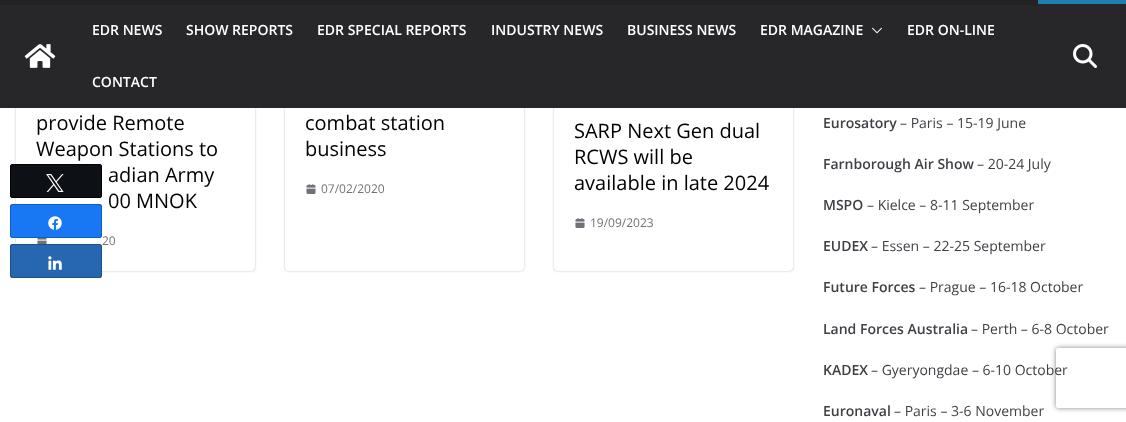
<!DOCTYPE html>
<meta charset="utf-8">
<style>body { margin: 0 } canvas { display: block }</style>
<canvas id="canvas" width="1126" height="422"></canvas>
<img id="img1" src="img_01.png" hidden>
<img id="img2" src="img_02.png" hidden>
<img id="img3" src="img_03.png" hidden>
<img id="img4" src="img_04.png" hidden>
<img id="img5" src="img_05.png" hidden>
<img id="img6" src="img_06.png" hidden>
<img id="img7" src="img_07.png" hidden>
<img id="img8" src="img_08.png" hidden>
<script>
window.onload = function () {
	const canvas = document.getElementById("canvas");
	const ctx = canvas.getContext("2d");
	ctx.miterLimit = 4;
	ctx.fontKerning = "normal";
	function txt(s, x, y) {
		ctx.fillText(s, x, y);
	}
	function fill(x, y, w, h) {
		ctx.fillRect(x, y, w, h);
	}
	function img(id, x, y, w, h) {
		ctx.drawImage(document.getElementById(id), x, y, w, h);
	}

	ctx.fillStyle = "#FFFFFF";
	fill(0, 0, 1126, 422);
	ctx.save();
	ctx.beginPath();
	ctx.moveTo(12, 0);
	ctx.lineTo(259, 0);
	ctx.lineTo(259, 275);
	ctx.lineTo(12, 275);
	ctx.closePath();
	ctx.moveTo(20, -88);
	ctx.lineTo(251, -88);
	ctx.bezierCurveTo(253, -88, 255, -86, 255, -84);
	ctx.lineTo(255, 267);
	ctx.bezierCurveTo(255, 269, 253, 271, 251, 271);
	ctx.lineTo(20, 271);
	ctx.bezierCurveTo(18, 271, 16, 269, 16, 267);
	ctx.lineTo(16, -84);
	ctx.bezierCurveTo(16, -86, 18, -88, 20, -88);
	ctx.closePath();
	ctx.clip("evenodd");
	ctx.fillStyle = "rgba(0, 0, 0, 0.24)";
	ctx.filter = "blur(1px)";
	ctx.beginPath();
	ctx.roundRect(16, -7, 239, 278, 4);
	ctx.fill();
	ctx.filter = "none";
	ctx.restore();
	ctx.save();
	ctx.beginPath();
	ctx.moveTo(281, 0);
	ctx.lineTo(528, 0);
	ctx.lineTo(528, 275);
	ctx.lineTo(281, 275);
	ctx.closePath();
	ctx.moveTo(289, -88);
	ctx.lineTo(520, -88);
	ctx.bezierCurveTo(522, -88, 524, -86, 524, -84);
	ctx.lineTo(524, 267);
	ctx.bezierCurveTo(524, 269, 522, 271, 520, 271);
	ctx.lineTo(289, 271);
	ctx.bezierCurveTo(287, 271, 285, 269, 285, 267);
	ctx.lineTo(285, -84);
	ctx.bezierCurveTo(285, -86, 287, -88, 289, -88);
	ctx.closePath();
	ctx.clip("evenodd");
	ctx.fillStyle = "rgba(0, 0, 0, 0.24)";
	ctx.filter = "blur(1px)";
	ctx.beginPath();
	ctx.roundRect(285, -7, 239, 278, 4);
	ctx.fill();
	ctx.filter = "none";
	ctx.restore();
	ctx.save();
	ctx.beginPath();
	ctx.moveTo(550, 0);
	ctx.lineTo(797, 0);
	ctx.lineTo(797, 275);
	ctx.lineTo(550, 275);
	ctx.closePath();
	ctx.moveTo(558, -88);
	ctx.lineTo(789, -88);
	ctx.bezierCurveTo(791, -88, 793, -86, 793, -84);
	ctx.lineTo(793, 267);
	ctx.bezierCurveTo(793, 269, 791, 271, 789, 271);
	ctx.lineTo(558, 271);
	ctx.bezierCurveTo(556, 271, 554, 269, 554, 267);
	ctx.lineTo(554, -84);
	ctx.bezierCurveTo(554, -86, 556, -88, 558, -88);
	ctx.closePath();
	ctx.clip("evenodd");
	ctx.fillStyle = "rgba(0, 0, 0, 0.24)";
	ctx.filter = "blur(1px)";
	ctx.beginPath();
	ctx.roundRect(554, -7, 239, 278, 4);
	ctx.fill();
	ctx.filter = "none";
	ctx.restore();
	ctx.fillStyle = "#27272A";
	fill(0, 4, 1126, 104);
	ctx.fillStyle = "#222222";
	fill(0, 0, 1038, 5);
	ctx.fillStyle = "#207DAF";
	fill(1038, 0, 88, 4);
	img("img1", 24, 44, 32, 24);
	img("img2", 872, 27, 10, 7);
	img("img3", 1073, 44, 24, 24);
	img("img4", 37, 238, 10, 6);
	img("img5", 306, 184, 10, 10);
	img("img5", 575, 218, 10, 10);
	ctx.fillStyle = "#0D1014";
	ctx.beginPath();
	ctx.roundRect(10.5, 164.5, 91, 33, 1.5);
	ctx.fill();
	ctx.strokeStyle = "#000000";
	ctx.stroke();
	img("img6", 46, 174, 18, 18);
	ctx.fillStyle = "#1877F2";
	ctx.beginPath();
	ctx.roundRect(10.5, 204.5, 91, 33, 1.5);
	ctx.fill();
	ctx.strokeStyle = "#0B5FCC";
	ctx.stroke();
	img("img7", 48, 216, 14, 14);
	ctx.fillStyle = "#2767B1";
	ctx.beginPath();
	ctx.roundRect(10.5, 244.5, 91, 33, 1.5);
	ctx.fill();
	ctx.strokeStyle = "#1E4F87";
	ctx.stroke();
	img("img8", 48, 256, 14, 14);
	ctx.save();
	ctx.beginPath();
	ctx.moveTo(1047, 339);
	ctx.lineTo(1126, 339);
	ctx.lineTo(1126, 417);
	ctx.lineTo(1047, 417);
	ctx.closePath();
	ctx.moveTo(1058, 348);
	ctx.lineTo(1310, 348);
	ctx.bezierCurveTo(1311, 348, 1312, 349, 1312, 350);
	ctx.lineTo(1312, 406);
	ctx.bezierCurveTo(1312, 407, 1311, 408, 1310, 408);
	ctx.lineTo(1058, 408);
	ctx.bezierCurveTo(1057, 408, 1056, 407, 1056, 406);
	ctx.lineTo(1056, 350);
	ctx.bezierCurveTo(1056, 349, 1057, 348, 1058, 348);
	ctx.closePath();
	ctx.clip("evenodd");
	ctx.fillStyle = "#808080";
	ctx.filter = "blur(2.5px)";
	ctx.beginPath();
	ctx.roundRect(1056, 348, 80, 60, 2);
	ctx.fill();
	ctx.filter = "none";
	ctx.restore();
	ctx.font = "600 14px Open Sans";
	ctx.fillStyle = "#FFFFFF";
	txt("EDR NEWS", 92, 35);
	txt("SHOW REPORTS", 186, 35);
	txt("EDR SPECIAL REPORTS", 317, 35);
	txt("INDUSTRY NEWS", 491, 35);
	txt("BUSINESS NEWS", 627, 35);
	txt("EDR MAGAZINE", 760, 35);
	txt("EDR ON-LINE", 907, 35);
	txt("CONTACT", 92, 87);
	ctx.font = "20px Open Sans";
	ctx.fillStyle = "#000000";
	txt("provide Remote", 36, 130);
	txt("Weapon Stations to", 36, 156);
	txt("adian Army", 108, 182);
	txt("00 MNOK", 108, 208);
	ctx.font = "12px Open Sans";
	ctx.fillStyle = "#71717A";
	txt("20", 102, 245);
	ctx.font = "20px Open Sans";
	ctx.fillStyle = "#000000";
	txt("combat station", 305, 130);
	txt("business", 305, 156);
	ctx.font = "12px Open Sans";
	ctx.fillStyle = "#71717A";
	txt("07/02/2020", 321, 193);
	ctx.font = "20px Open Sans";
	ctx.fillStyle = "#000000";
	txt("SARP Next Gen dual", 574, 138);
	txt("RCWS will be", 574, 164);
	txt("available in late 2024", 574, 190);
	ctx.font = "12px Open Sans";
	ctx.fillStyle = "#71717A";
	txt("19/09/2023", 590, 227);
	ctx.font = "600 14px Open Sans";
	ctx.fillStyle = "#3F3F46";
	txt("Eurosatory", 823, 128);
	ctx.font = "14px Open Sans";
	txt("– Paris – 15-19 June", 900, 128);
	ctx.font = "600 14px Open Sans";
	txt("Farnborough Air Show", 823, 169);
	ctx.font = "14px Open Sans";
	txt("– 20-24 July", 977, 169);
	ctx.font = "600 14px Open Sans";
	txt("MSPO", 823, 210);
	ctx.font = "14px Open Sans";
	txt("– Kielce – 8-11 September", 867, 210);
	ctx.font = "600 14px Open Sans";
	txt("EUDEX", 823, 251);
	ctx.font = "14px Open Sans";
	txt("– Essen – 22-25 September", 871, 251);
	ctx.font = "600 14px Open Sans";
	txt("Future Forces", 823, 292);
	ctx.font = "14px Open Sans";
	txt("– Prague – 16-18 October", 919, 292);
	ctx.font = "600 14px Open Sans";
	txt("Land Forces Australia", 823, 334);
	ctx.font = "14px Open Sans";
	txt("– Perth – 6-8 October", 971, 334);
	ctx.font = "600 14px Open Sans";
	txt("KADEX", 823, 375);
	ctx.font = "14px Open Sans";
	txt("– Gyeryongdae – 6-10 October", 871, 375);
	ctx.font = "600 14px Open Sans";
	txt("Euronaval", 823, 416);
	ctx.font = "14px Open Sans";
	txt("– Paris – 3-6 November", 894, 416);
};
</script>
